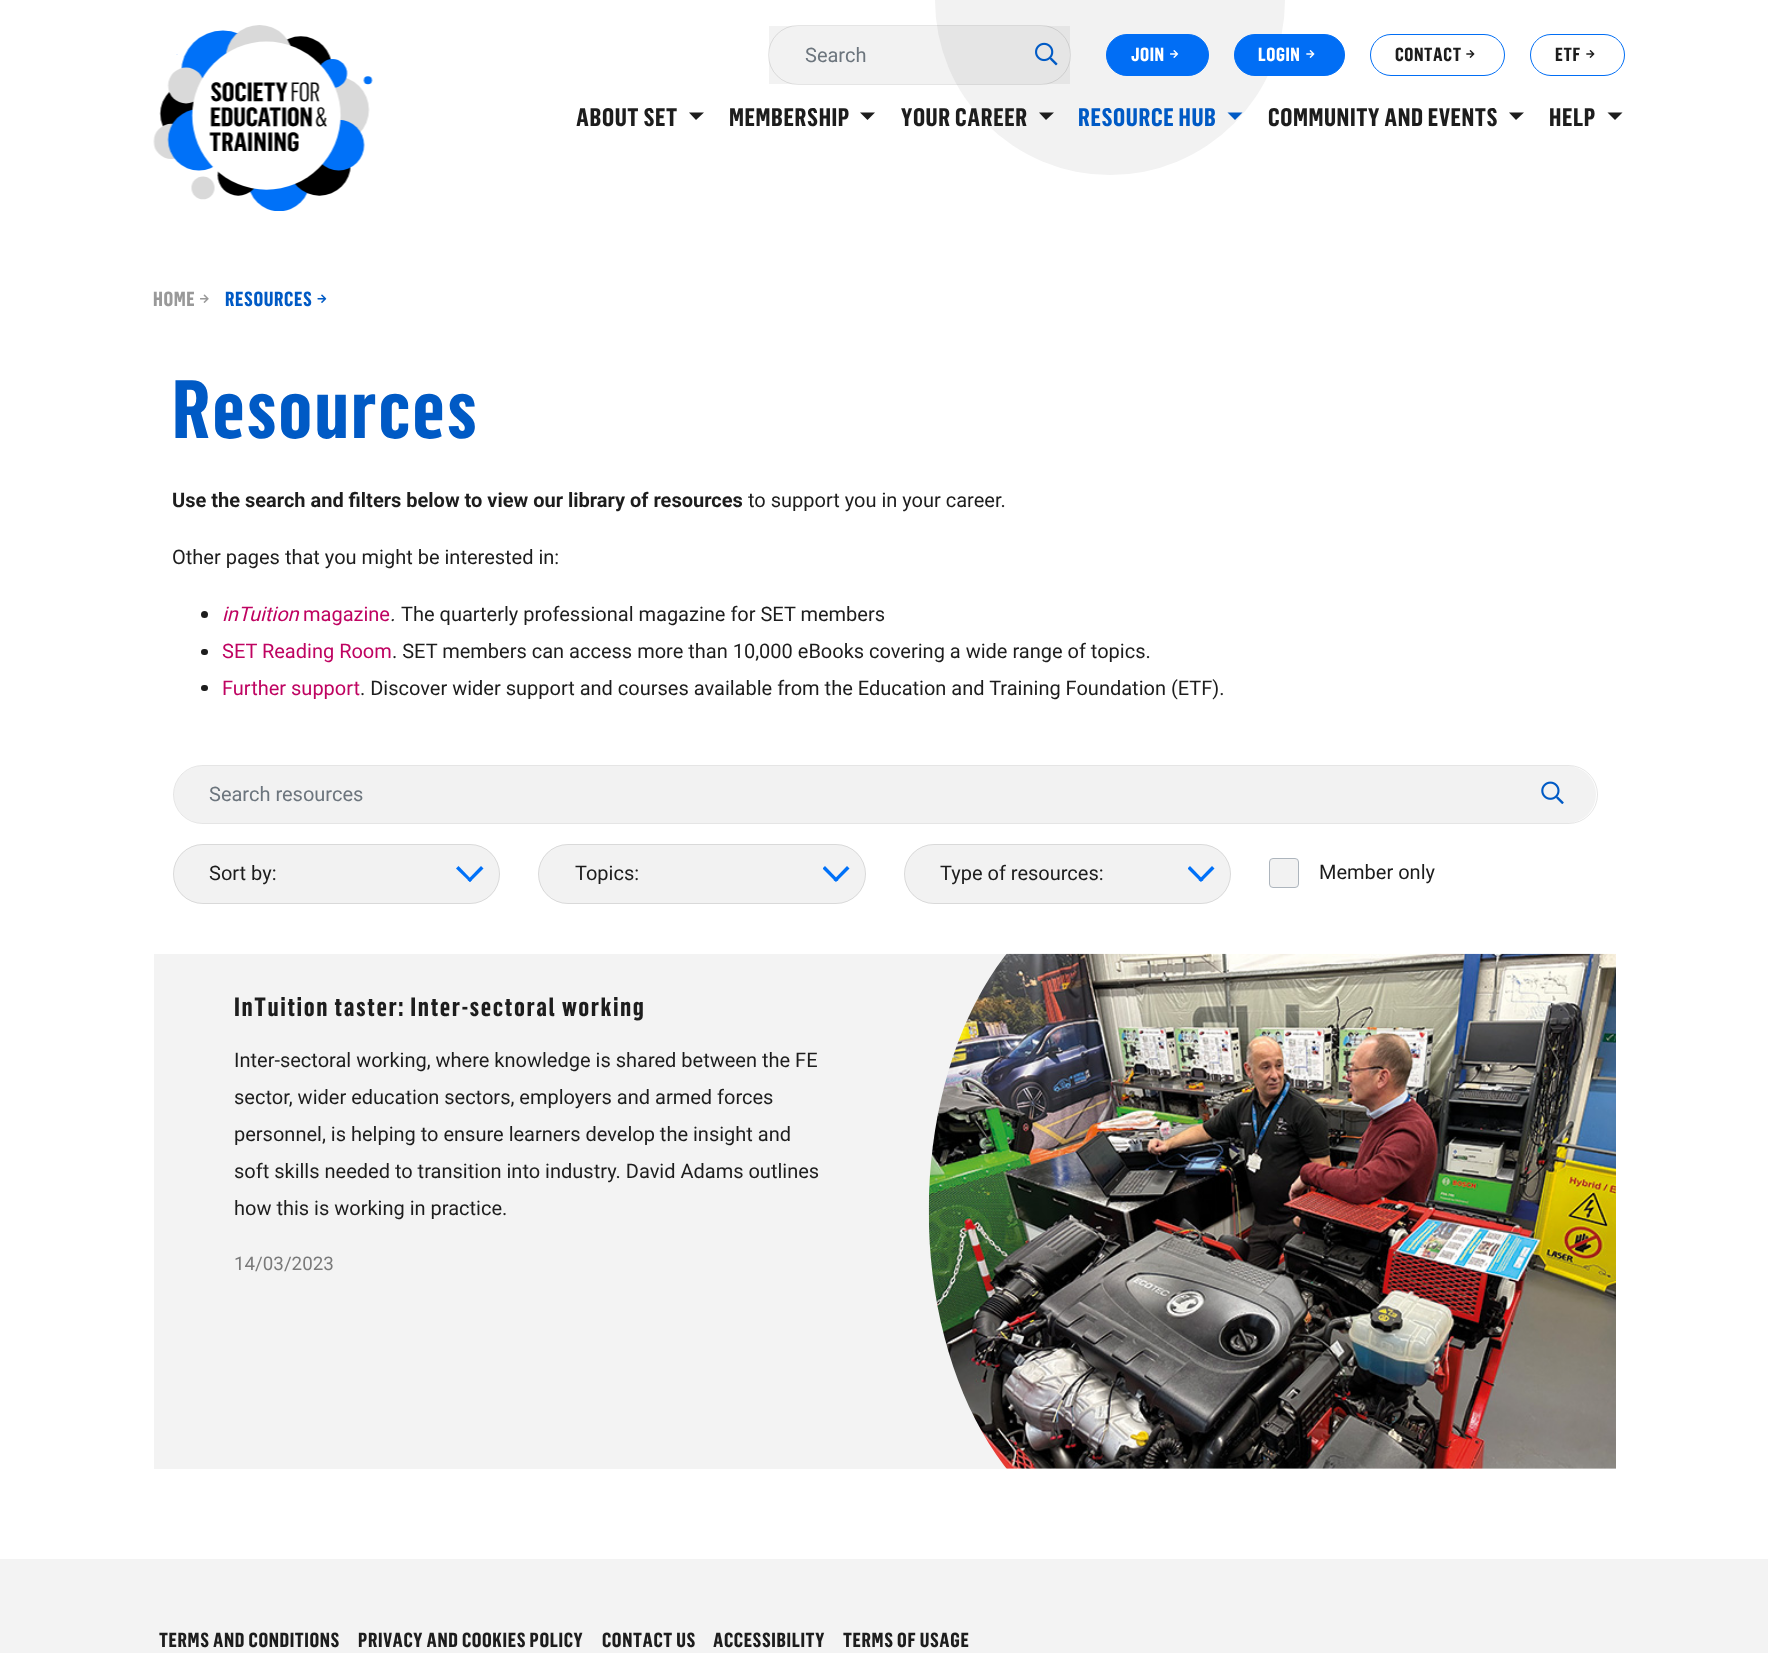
<!DOCTYPE html>
<meta charset="utf-8">
<style>body { margin: 0 } canvas { display: block }</style>
<canvas id="canvas" width="1768" height="1653"></canvas>
<img id="img1" src="img_01.png" hidden>
<img id="img2" src="img_02.png" hidden>
<img id="img3" src="img_03.png" hidden>
<img id="img4" src="img_04.png" hidden>
<img id="img5" src="img_05.png" hidden>
<img id="img6" src="img_06.png" hidden>
<img id="img7" src="img_07.png" hidden>
<img id="img8" src="img_08.png" hidden>
<img id="img9" src="img_09.png" hidden>
<script>
window.onload = function () {
	const canvas = document.getElementById("canvas");
	const ctx = canvas.getContext("2d");
	ctx.miterLimit = 4;
	ctx.fontKerning = "normal";
	function txt(s, x, y) {
		ctx.fillText(s, x, y);
	}
	function fill(x, y, w, h) {
		ctx.fillRect(x, y, w, h);
	}
	function round(x, y, w, h, r) {
		ctx.beginPath();
		ctx.roundRect(x, y, w, h, r);
		ctx.fill();
	}
	function img(id, x, y, w, h) {
		ctx.drawImage(document.getElementById(id), x, y, w, h);
	}

	ctx.fillStyle = "#FFFFFF";
	fill(0, 0, 1768, 1653);
	ctx.fillStyle = "#F2F2F2";
	ctx.beginPath();
	ctx.arc(1110, 0, 175, 0, Math.PI * 2);
	ctx.fill();
	img("img1", 153, 25, 220, 186);
	ctx.fillStyle = "rgba(0, 0, 0, 0.05)";
	fill(769, 26, 301, 58);
	ctx.beginPath();
	ctx.roundRect(768.5, 25.5, 302, 59, 29.5);
	ctx.strokeStyle = "rgba(0, 0, 0, 0.1)";
	ctx.stroke();
	img("img2", 1035, 42, 23, 24);
	ctx.fillStyle = "#016EF5";
	ctx.beginPath();
	ctx.roundRect(1106.5, 34.5, 102, 41, 20.5);
	ctx.fill();
	ctx.strokeStyle = "#016EF5";
	ctx.stroke();
	img("img3", 1170, 50, 9, 8);
	ctx.beginPath();
	ctx.roundRect(1234.5, 34.5, 110, 41, 20.5);
	ctx.fill();
	ctx.stroke();
	img("img4", 1306, 50, 9, 8);
	ctx.beginPath();
	ctx.roundRect(1370.5, 34.5, 134, 41, 20.5);
	ctx.stroke();
	img("img5", 1466, 50, 9, 8);
	ctx.beginPath();
	ctx.roundRect(1530.5, 34.5, 94, 41, 20.5);
	ctx.stroke();
	img("img5", 1586, 50, 9, 8);
	ctx.fillStyle = "#1D1D1D";
	ctx.beginPath();
	ctx.moveTo(689, 112.5);
	ctx.lineTo(704, 112.5);
	ctx.lineTo(696, 120);
	ctx.closePath();
	ctx.fill();
	ctx.beginPath();
	ctx.moveTo(860, 112.5);
	ctx.lineTo(875, 112.5);
	ctx.lineTo(867.5, 120);
	ctx.closePath();
	ctx.fill();
	ctx.beginPath();
	ctx.moveTo(1039, 112.5);
	ctx.lineTo(1054, 112.5);
	ctx.lineTo(1046, 120);
	ctx.closePath();
	ctx.fill();
	ctx.fillStyle = "#005AC5";
	ctx.beginPath();
	ctx.moveTo(1227.5, 112.5);
	ctx.lineTo(1242.5, 112.5);
	ctx.lineTo(1235, 120);
	ctx.closePath();
	ctx.fill();
	ctx.fillStyle = "#1D1D1D";
	ctx.beginPath();
	ctx.moveTo(1509, 112.5);
	ctx.lineTo(1524, 112.5);
	ctx.lineTo(1516, 120);
	ctx.closePath();
	ctx.fill();
	ctx.beginPath();
	ctx.moveTo(1607.5, 112.5);
	ctx.lineTo(1622.5, 112.5);
	ctx.lineTo(1615, 120);
	ctx.closePath();
	ctx.fill();
	img("img6", 200, 294, 9, 9);
	img("img7", 317, 294, 10, 9);
	ctx.beginPath();
	ctx.arc(204.5, 614.5, 3.5, 0, Math.PI * 2);
	ctx.fill();
	round(201, 649, 7, 6, 3);
	round(201, 685, 7, 6, 3);
	ctx.fillStyle = "#F2F2F2";
	round(174, 766, 1422, 57, 28.5);
	ctx.beginPath();
	ctx.roundRect(173.5, 765.5, 1424, 58, 29);
	ctx.strokeStyle = "rgba(0, 0, 0, 0.1)";
	ctx.stroke();
	img("img8", 1541, 781, 23, 23);
	round(173, 844, 327, 60, 30);
	ctx.fillStyle = "#0071F8";
	ctx.beginPath();
	ctx.moveTo(467.5, 880);
	ctx.lineTo(481, 866);
	ctx.lineTo(483.5, 868.5);
	ctx.lineTo(470, 882);
	ctx.closePath();
	ctx.fill();
	ctx.beginPath();
	ctx.moveTo(456, 868.5);
	ctx.lineTo(458.5, 866);
	ctx.lineTo(472, 880);
	ctx.lineTo(470, 882);
	ctx.closePath();
	ctx.fill();
	ctx.beginPath();
	ctx.roundRect(173.5, 844.5, 326, 59, 29.5);
	ctx.stroke();
	ctx.fillStyle = "#F2F2F2";
	round(538, 844, 328, 60, 30);
	ctx.fillStyle = "#0071F8";
	ctx.beginPath();
	ctx.moveTo(833.5, 880);
	ctx.lineTo(847, 866);
	ctx.lineTo(849.5, 868.5);
	ctx.lineTo(836, 882);
	ctx.closePath();
	ctx.fill();
	ctx.save();
	ctx.beginPath();
	ctx.rect(823, 866, 27, 15);
	ctx.clip();
	ctx.beginPath();
	ctx.moveTo(822.5, 868.5);
	ctx.lineTo(825, 866);
	ctx.lineTo(838.5, 880);
	ctx.lineTo(836, 882);
	ctx.closePath();
	ctx.fill();
	ctx.restore();
	ctx.beginPath();
	ctx.roundRect(538.5, 844.5, 327, 59, 29.5);
	ctx.stroke();
	ctx.fillStyle = "#F2F2F2";
	round(904, 844, 327, 60, 30);
	ctx.fillStyle = "#0071F8";
	ctx.beginPath();
	ctx.moveTo(1198.5, 880);
	ctx.lineTo(1212, 866);
	ctx.lineTo(1214.5, 868.5);
	ctx.lineTo(1201, 882);
	ctx.closePath();
	ctx.fill();
	ctx.save();
	ctx.beginPath();
	ctx.rect(1188, 866, 27, 15);
	ctx.clip();
	ctx.beginPath();
	ctx.moveTo(1187.5, 868.5);
	ctx.lineTo(1190, 866);
	ctx.lineTo(1203.5, 880);
	ctx.lineTo(1201, 882);
	ctx.closePath();
	ctx.fill();
	ctx.restore();
	ctx.beginPath();
	ctx.roundRect(904.5, 844.5, 326, 59, 29.5);
	ctx.stroke();
	ctx.fillStyle = "#F2F2F2";
	ctx.beginPath();
	ctx.roundRect(1269.5, 858.5, 29, 29, 3.5);
	ctx.fill();
	ctx.strokeStyle = "#ADB5BD";
	ctx.stroke();
	ctx.fillStyle = "#F3F3F3";
	fill(154, 954, 1462, 515);
	img("img9", 928, 953, 688, 516);
	fill(0, 1559, 1768, 94);
	ctx.font = "20px Roboto";
	ctx.fillStyle = "#6C757D";
	txt("Search", 805, 62);
	ctx.letterSpacing = "0.6px";
	ctx.font = "bold 18.75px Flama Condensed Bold";
	ctx.fillStyle = "#FFFFFF";
	txt("JOIN", 1131, 61);
	txt("LOGIN", 1258, 61);
	ctx.fillStyle = "#1D1D1D";
	txt("CONTACT", 1395, 61);
	txt("ETF", 1555, 61);
	ctx.font = "bold 25px Flama Condensed Bold";
	txt("ABOUT SET", 576, 126);
	txt("MEMBERSHIP", 729, 126);
	txt("YOUR CAREER", 901, 126);
	ctx.fillStyle = "#005AC5";
	txt("RESOURCE HUB", 1078, 126);
	ctx.fillStyle = "#1D1D1D";
	txt("COMMUNITY AND EVENTS", 1268, 126);
	txt("HELP", 1549, 126);
	ctx.font = "bold 20px Flama Condensed Bold";
	ctx.fillStyle = "#999999";
	txt("HOME", 153, 306);
	ctx.fillStyle = "#005AC5";
	txt("RESOURCES", 225, 306);
	ctx.letterSpacing = "1.75px";
	ctx.font = "bold 81px Flama Condensed Bold";
	txt("Resources", 172, 438);
	ctx.letterSpacing = "0px";
	ctx.font = "bold 20px Roboto";
	ctx.fillStyle = "#1D1D1D";
	txt("Use the search and filters below to view our library of resources", 172, 507);
	ctx.font = "20px Roboto";
	txt("to support you in your career.", 748, 507);
	txt("Other pages that you might be interested in:", 172, 564);
	ctx.font = "italic 20px Roboto";
	ctx.fillStyle = "#BF0361";
	txt("inTuition", 222, 621);
	ctx.font = "20px Roboto";
	txt("magazine", 303, 621);
	ctx.fillStyle = "#1D1D1D";
	txt("The quarterly professional magazine for SET members", 401, 621);
	ctx.font = "italic 20px Roboto";
	txt(".", 390, 621);
	ctx.font = "20px Roboto";
	ctx.fillStyle = "#BF0361";
	txt("SET Reading Room", 222, 658);
	ctx.fillStyle = "#1D1D1D";
	txt(". SET members can access more than 10,000 eBooks covering a wide range of topics.", 392, 658);
	ctx.fillStyle = "#BF0361";
	txt("Further support", 222, 695);
	ctx.fillStyle = "#1D1D1D";
	txt(". Discover wider support and courses available from the Education and Training Foundation (ETF).", 360, 695);
	ctx.fillStyle = "#6C757D";
	txt("Search resources", 209, 801);
	ctx.fillStyle = "#1D1D1D";
	txt("Sort by:", 209, 880);
	txt("Topics:", 575, 880);
	txt("Type of resources:", 940, 880);
	txt("Member only", 1319, 879);
	ctx.letterSpacing = "1.55px";
	ctx.font = "bold 26px Flama Condensed Bold";
	txt("InTuition taster: Inter-sectoral working", 234, 1016);
	ctx.letterSpacing = "0px";
	ctx.font = "20px Roboto";
	txt("Inter-sectoral working, where knowledge is shared between the FE", 234, 1067);
	txt("sector, wider education sectors, employers and armed forces", 234, 1104);
	txt("personnel, is helping to ensure learners develop the insight and", 234, 1141);
	txt("soft skills needed to transition into industry. David Adams outlines", 234, 1178);
	txt("how this is working in practice.", 234, 1215);
	ctx.font = "18.75px Roboto";
	ctx.fillStyle = "#7A7A7A";
	txt("14/03/2023", 234, 1270);
	ctx.letterSpacing = "0.6px";
	ctx.font = "bold 20px Flama Condensed Bold";
	ctx.fillStyle = "#1D1D1D";
	txt("TERMS AND CONDITIONS", 159, 1647);
	txt("PRIVACY AND COOKIES POLICY", 358, 1647);
	txt("CONTACT US", 602, 1647);
	txt("ACCESSIBILITY", 713, 1647);
	txt("TERMS OF USAGE", 843, 1647);
};
</script>
